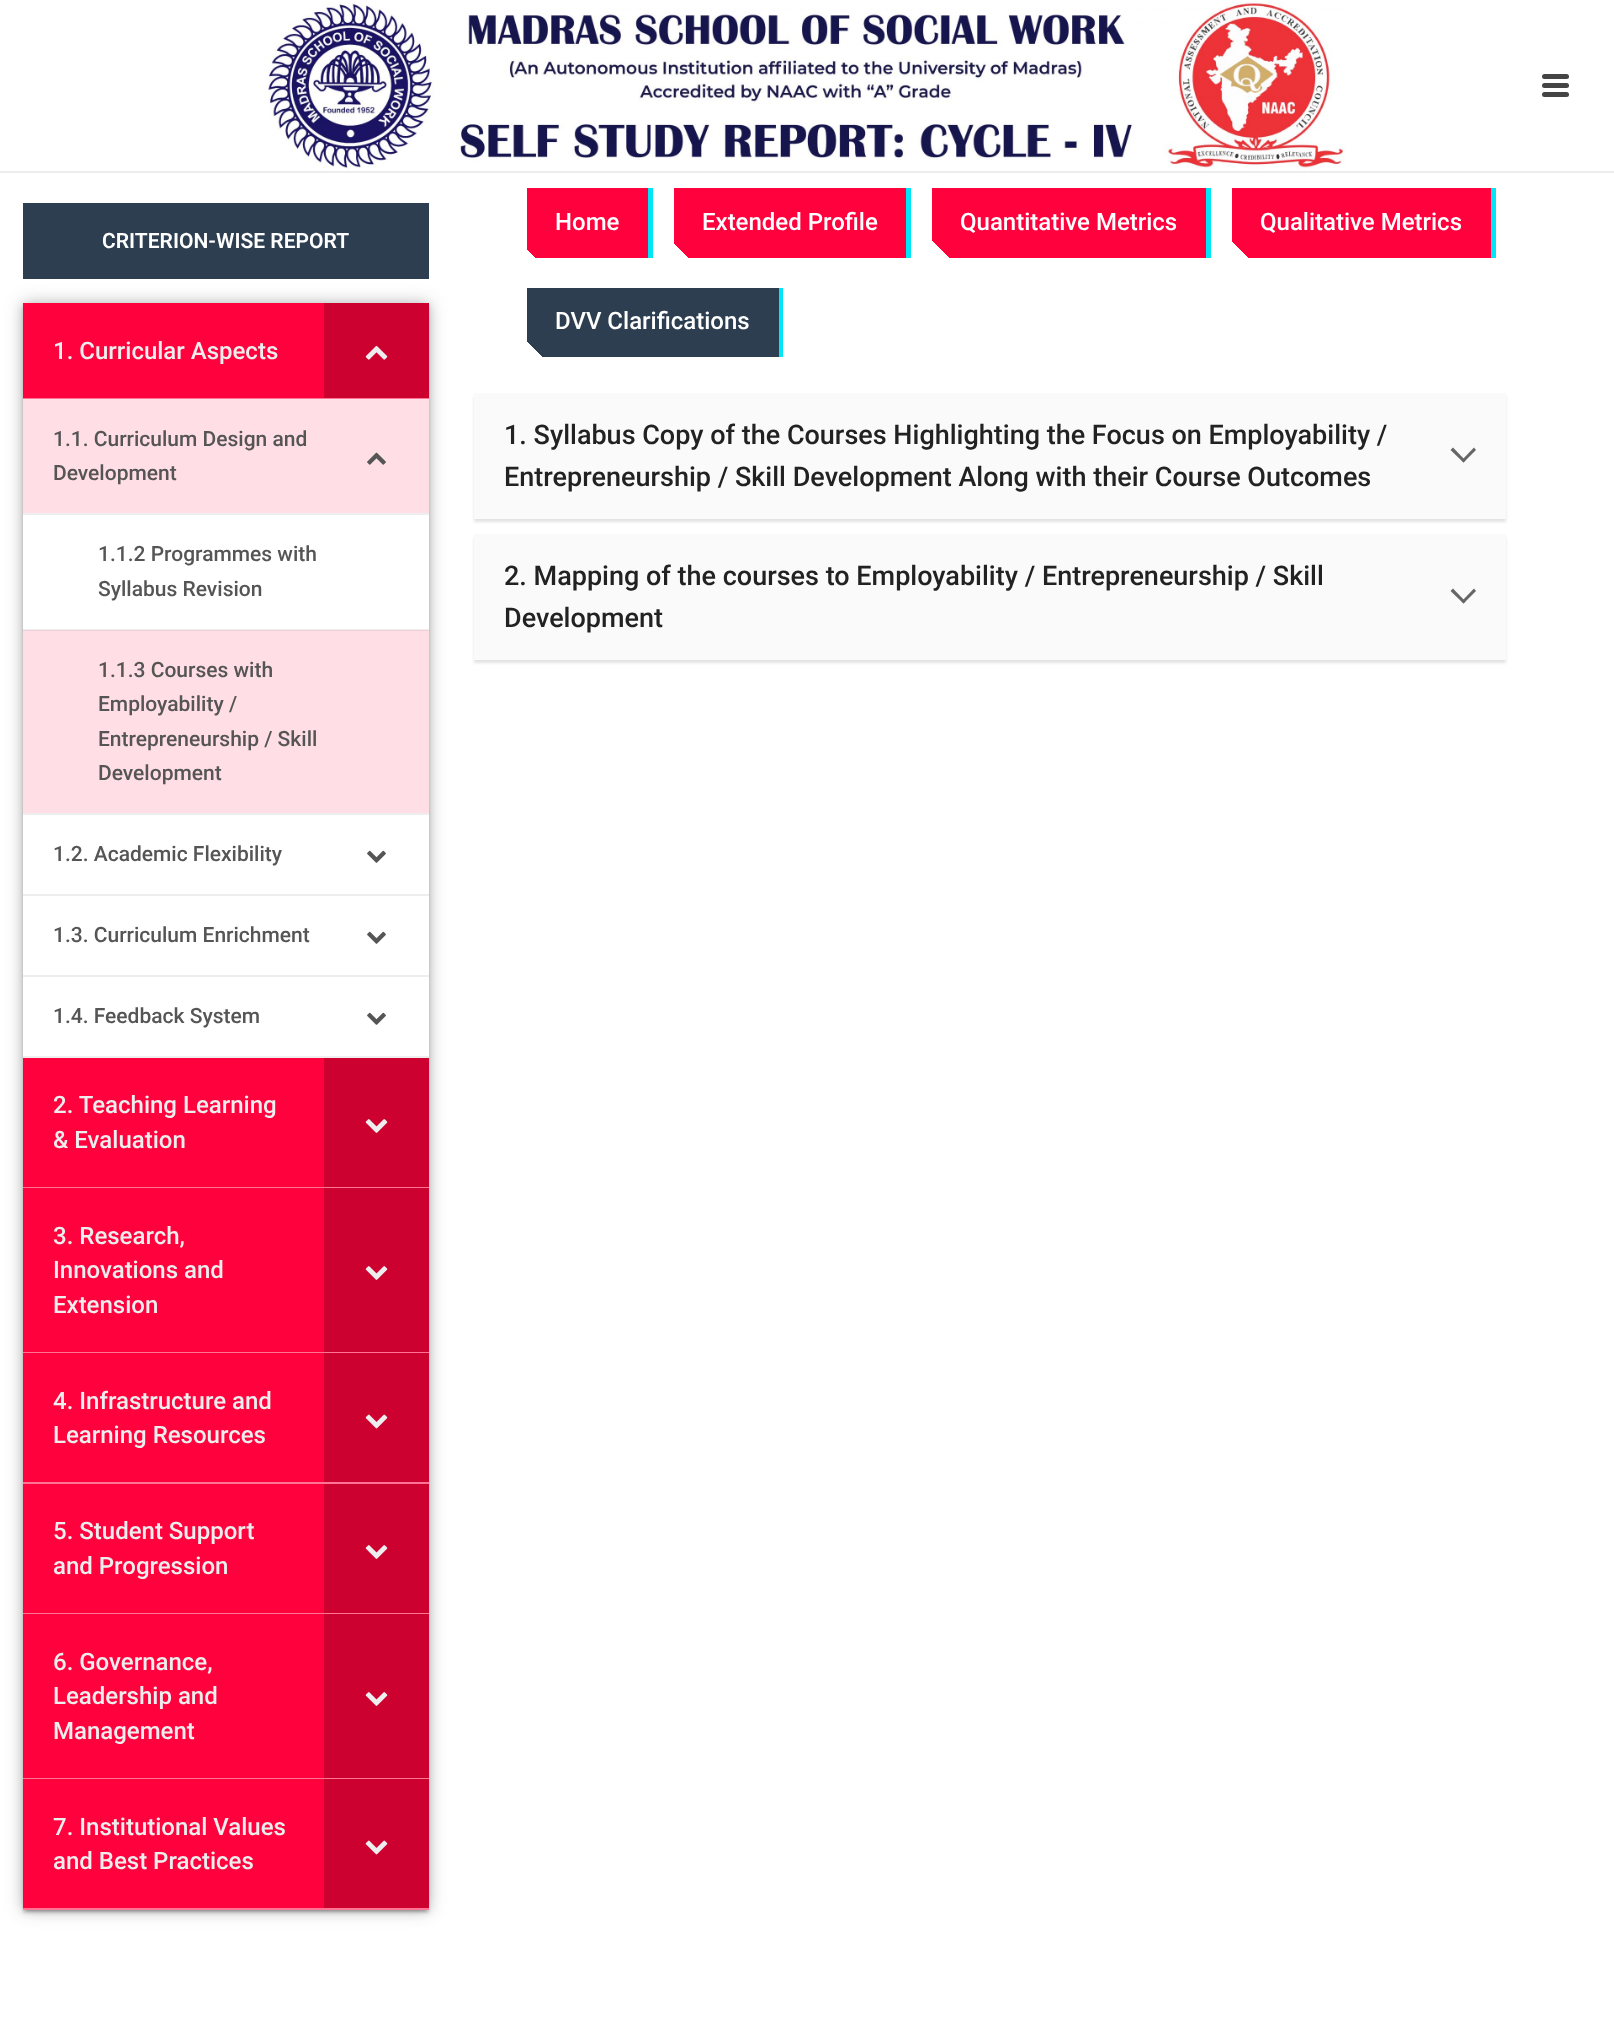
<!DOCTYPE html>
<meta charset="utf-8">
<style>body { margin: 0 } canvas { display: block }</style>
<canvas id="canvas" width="1614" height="2033"></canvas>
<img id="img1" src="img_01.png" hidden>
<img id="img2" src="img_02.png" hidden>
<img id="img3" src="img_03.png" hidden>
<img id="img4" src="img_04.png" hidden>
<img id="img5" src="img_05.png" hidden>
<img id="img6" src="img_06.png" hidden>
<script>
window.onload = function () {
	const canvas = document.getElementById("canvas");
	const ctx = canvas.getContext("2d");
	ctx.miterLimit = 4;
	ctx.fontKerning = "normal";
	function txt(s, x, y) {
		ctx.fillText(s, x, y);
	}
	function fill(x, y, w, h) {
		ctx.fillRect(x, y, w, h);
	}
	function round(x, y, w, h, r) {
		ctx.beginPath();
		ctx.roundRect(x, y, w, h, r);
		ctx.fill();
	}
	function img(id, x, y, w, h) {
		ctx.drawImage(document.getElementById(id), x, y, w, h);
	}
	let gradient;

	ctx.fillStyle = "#FFFFFF";
	fill(0, 0, 1614, 2033);
	ctx.fillStyle = "#EDEDED";
	fill(0, 171, 1614, 2);
	img("img1", 268, 2, 1078, 168);
	ctx.fillStyle = "#444444";
	round(1542, 74, 27, 5, 2.5);
	round(1542, 83, 27, 5, 2.5);
	round(1542, 92, 27, 5, 2.5);
	ctx.fillStyle = "rgba(34, 34, 34, 0.28)";
	ctx.filter = "blur(9px)";
	ctx.beginPath();
	ctx.rect(23, 303, 406, 1607);
	ctx.fill();
	ctx.filter = "none";
	ctx.fillStyle = "#2D3E50";
	fill(23, 203, 406, 76);
	ctx.fillStyle = "rgba(0, 0, 0, 0.12)";
	ctx.filter = "blur(4px)";
	ctx.beginPath();
	ctx.rect(23, 305, 406, 1606);
	ctx.fill();
	ctx.filter = "none";
	ctx.fillStyle = "rgba(0, 0, 0, 0.2)";
	ctx.filter = "blur(1px)";
	ctx.beginPath();
	ctx.rect(26, 311, 400, 1600);
	ctx.fill();
	ctx.filter = "none";
	ctx.fillStyle = "rgba(0, 0, 0, 0.14)";
	ctx.filter = "blur(1.5px)";
	ctx.beginPath();
	ctx.rect(23, 306, 406, 1607);
	ctx.fill();
	ctx.filter = "none";
	ctx.fillStyle = "#FF013C";
	fill(23, 303, 301, 95);
	ctx.fillStyle = "#FF7394";
	fill(23, 398, 406, 1);
	ctx.fillStyle = "#CC0130";
	fill(324, 303, 105, 95);
	img("img2", 365, 345, 23, 15);
	ctx.fillStyle = "#FFFFFF";
	fill(23, 515, 406, 541);
	ctx.fillStyle = "#FFDEE6";
	fill(23, 631, 406, 182);
	fill(23, 399, 406, 114);
	ctx.fillStyle = "#EEEEEE";
	fill(23, 513, 406, 2);
	img("img3", 367, 452, 19, 13);
	fill(23, 629, 406, 1);
	ctx.fillStyle = "#F0CFD7";
	fill(23, 630, 406, 1);
	ctx.fillStyle = "#EEEEEE";
	fill(23, 813, 406, 2);
	fill(23, 894, 406, 2);
	img("img4", 367, 850, 19, 13);
	fill(23, 975, 406, 2);
	img("img4", 367, 931, 19, 13);
	fill(23, 1056, 406, 2);
	img("img4", 367, 1012, 19, 13);
	ctx.fillStyle = "#FF013C";
	fill(23, 1058, 301, 129);
	ctx.fillStyle = "#FF7394";
	fill(23, 1187, 406, 1);
	ctx.fillStyle = "#CC0130";
	fill(324, 1058, 105, 129);
	img("img5", 365, 1119, 23, 14);
	ctx.fillStyle = "#FF013C";
	fill(23, 1188, 301, 164);
	ctx.fillStyle = "#FF7394";
	fill(23, 1352, 406, 1);
	ctx.fillStyle = "#CC0130";
	fill(324, 1188, 105, 164);
	img("img5", 365, 1266, 23, 14);
	ctx.fillStyle = "#FF013C";
	fill(23, 1353, 301, 129);
	ctx.fillStyle = "#FF7394";
	fill(23, 1482, 406, 2);
	ctx.fillStyle = "#CC0130";
	fill(324, 1353, 105, 129);
	img("img6", 365, 1414, 23, 15);
	ctx.fillStyle = "#FF013C";
	fill(23, 1484, 301, 129);
	ctx.fillStyle = "#FF7394";
	fill(23, 1613, 406, 1);
	ctx.fillStyle = "#CC0130";
	fill(324, 1484, 105, 129);
	img("img5", 365, 1545, 23, 14);
	ctx.fillStyle = "#FF013C";
	fill(23, 1614, 301, 164);
	ctx.fillStyle = "#FF7394";
	fill(23, 1778, 406, 1);
	ctx.fillStyle = "#CC0130";
	fill(324, 1614, 105, 164);
	img("img5", 365, 1692, 23, 14);
	ctx.fillStyle = "#FF013C";
	fill(23, 1779, 301, 129);
	ctx.fillStyle = "#FF7394";
	fill(23, 1908, 406, 2);
	ctx.fillStyle = "#CC0130";
	fill(324, 1779, 105, 129);
	img("img6", 365, 1840, 23, 15);
	ctx.fillStyle = "#00E6F6";
	fill(648, 188, 5, 70);
	gradient = ctx.createLinearGradient(539, 271, 635, 175);
	gradient.addColorStop(0.05, "#FFFFFF");
	gradient.addColorStop(0.05, "#FF013C");
	ctx.fillStyle = gradient;
	fill(527, 188, 121, 70);
	ctx.fillStyle = "#00E6F6";
	fill(906, 188, 5, 70);
	gradient = ctx.createLinearGradient(714, 299, 866, 147);
	gradient.addColorStop(0.05, "#FFFFFF");
	gradient.addColorStop(0.05, "#FF013C");
	ctx.fillStyle = gradient;
	fill(674, 188, 232, 70);
	ctx.fillStyle = "#00E6F6";
	fill(1206, 188, 5, 70);
	gradient = ctx.createLinearGradient(983, 309, 1155, 137);
	gradient.addColorStop(0.05, "#FFFFFF");
	gradient.addColorStop(0.05, "#FF013C");
	ctx.fillStyle = gradient;
	fill(932, 188, 274, 70);
	ctx.fillStyle = "#00E6F6";
	fill(1491, 188, 5, 70);
	gradient = ctx.createLinearGradient(1279, 305, 1444, 140);
	gradient.addColorStop(0.05, "#FFFFFF");
	gradient.addColorStop(0.05, "#FF013C");
	ctx.fillStyle = gradient;
	fill(1232, 188, 259, 70);
	ctx.fillStyle = "#00E6F6";
	fill(779, 288, 4, 69);
	gradient = ctx.createLinearGradient(572, 403, 733, 242);
	gradient.addColorStop(0.05, "rgba(45, 62, 80, 0)");
	gradient.addColorStop(0.05, "#2D3E50");
	ctx.fillStyle = gradient;
	fill(527, 288, 252, 69);
	ctx.fillStyle = "#FAFAFA";
	fill(474, 393, 1032, 126);
	ctx.save();
	ctx.beginPath();
	ctx.moveTo(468, 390);
	ctx.lineTo(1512, 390);
	ctx.lineTo(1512, 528);
	ctx.lineTo(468, 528);
	ctx.closePath();
	ctx.moveTo(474, 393);
	ctx.lineTo(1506, 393);
	ctx.lineTo(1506, 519);
	ctx.lineTo(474, 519);
	ctx.closePath();
	ctx.clip("evenodd");
	ctx.fillStyle = "rgba(34, 34, 34, 0.13)";
	ctx.filter = "blur(1.5px)";
	ctx.beginPath();
	ctx.rect(474, 396, 1032, 126);
	ctx.fill();
	ctx.filter = "none";
	ctx.restore();
	ctx.fillStyle = "#666666";
	ctx.beginPath();
	ctx.moveTo(1474, 447.5);
	ctx.lineTo(1476, 450);
	ctx.lineTo(1463.5, 462.5);
	ctx.lineTo(1461.5, 460.5);
	ctx.closePath();
	ctx.fill();
	ctx.beginPath();
	ctx.moveTo(1453, 447.5);
	ctx.lineTo(1465.5, 460.5);
	ctx.lineTo(1463.5, 462.5);
	ctx.lineTo(1450.5, 450);
	ctx.closePath();
	ctx.fill();
	ctx.fillStyle = "#FAFAFA";
	fill(474, 534, 1032, 126);
	ctx.save();
	ctx.beginPath();
	ctx.moveTo(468, 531);
	ctx.lineTo(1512, 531);
	ctx.lineTo(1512, 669);
	ctx.lineTo(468, 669);
	ctx.closePath();
	ctx.moveTo(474, 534);
	ctx.lineTo(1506, 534);
	ctx.lineTo(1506, 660);
	ctx.lineTo(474, 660);
	ctx.closePath();
	ctx.clip("evenodd");
	ctx.fillStyle = "rgba(34, 34, 34, 0.13)";
	ctx.filter = "blur(1.5px)";
	ctx.beginPath();
	ctx.rect(474, 537, 1032, 126);
	ctx.fill();
	ctx.filter = "none";
	ctx.restore();
	ctx.fillStyle = "#666666";
	ctx.beginPath();
	ctx.moveTo(1474, 588.5);
	ctx.lineTo(1476, 591);
	ctx.lineTo(1463.5, 603.5);
	ctx.lineTo(1461.5, 601.5);
	ctx.closePath();
	ctx.fill();
	ctx.beginPath();
	ctx.moveTo(1453, 588.5);
	ctx.lineTo(1465.5, 601.5);
	ctx.lineTo(1463.5, 603.5);
	ctx.lineTo(1450.5, 591);
	ctx.closePath();
	ctx.fill();
	ctx.font = "600 21px Roboto";
	ctx.fillStyle = "#FFFFFF";
	txt("CRITERION-WISE REPORT", 102, 248);
	ctx.font = "500 24px Roboto";
	ctx.fillStyle = "#EEEEEE";
	txt("1. Curricular Aspects", 53, 359);
	ctx.font = "500 21px Roboto";
	ctx.fillStyle = "#555555";
	txt("1.1. Curriculum Design and", 53, 446);
	txt("Development", 53, 480);
	txt("1.1.2 Programmes with", 98, 561);
	txt("Syllabus Revision", 98, 596);
	txt("1.1.3 Courses with", 98, 677);
	txt("Employability /", 98, 711);
	txt("Entrepreneurship / Skill", 98, 746);
	txt("Development", 98, 780);
	txt("1.2. Academic Flexibility", 53, 861);
	txt("1.3. Curriculum Enrichment", 53, 942);
	txt("1.4. Feedback System", 53, 1023);
	ctx.font = "500 24px Roboto";
	ctx.fillStyle = "#EEEEEE";
	txt("2. Teaching Learning", 53, 1113);
	txt("& Evaluation", 53, 1148);
	txt("3. Research,", 53, 1244);
	txt("Innovations and", 53, 1278);
	txt("Extension", 53, 1313);
	txt("4. Infrastructure and", 53, 1409);
	txt("Learning Resources", 53, 1443);
	txt("5. Student Support", 53, 1539);
	txt("and Progression", 53, 1574);
	txt("6. Governance,", 53, 1670);
	txt("Leadership and", 53, 1704);
	txt("Management", 53, 1739);
	txt("7. Institutional Values", 53, 1835);
	txt("and Best Practices", 53, 1869);
	ctx.fillStyle = "#FFFFFF";
	txt("Home", 555, 230);
	txt("Extended Profile", 702, 230);
	txt("Quantitative Metrics", 960, 230);
	txt("Qualitative Metrics", 1260, 230);
	txt("DVV Clarifications", 555, 329);
	ctx.font = "500 27px Roboto";
	ctx.fillStyle = "#222222";
	txt("1. Syllabus Copy of the Courses Highlighting the Focus on Employability /", 504, 444);
	txt("Entrepreneurship / Skill Development Along with their Course Outcomes", 504, 486);
	txt("2. Mapping of the courses to Employability / Entrepreneurship / Skill", 504, 585);
	txt("Development", 504, 627);
};
</script>
